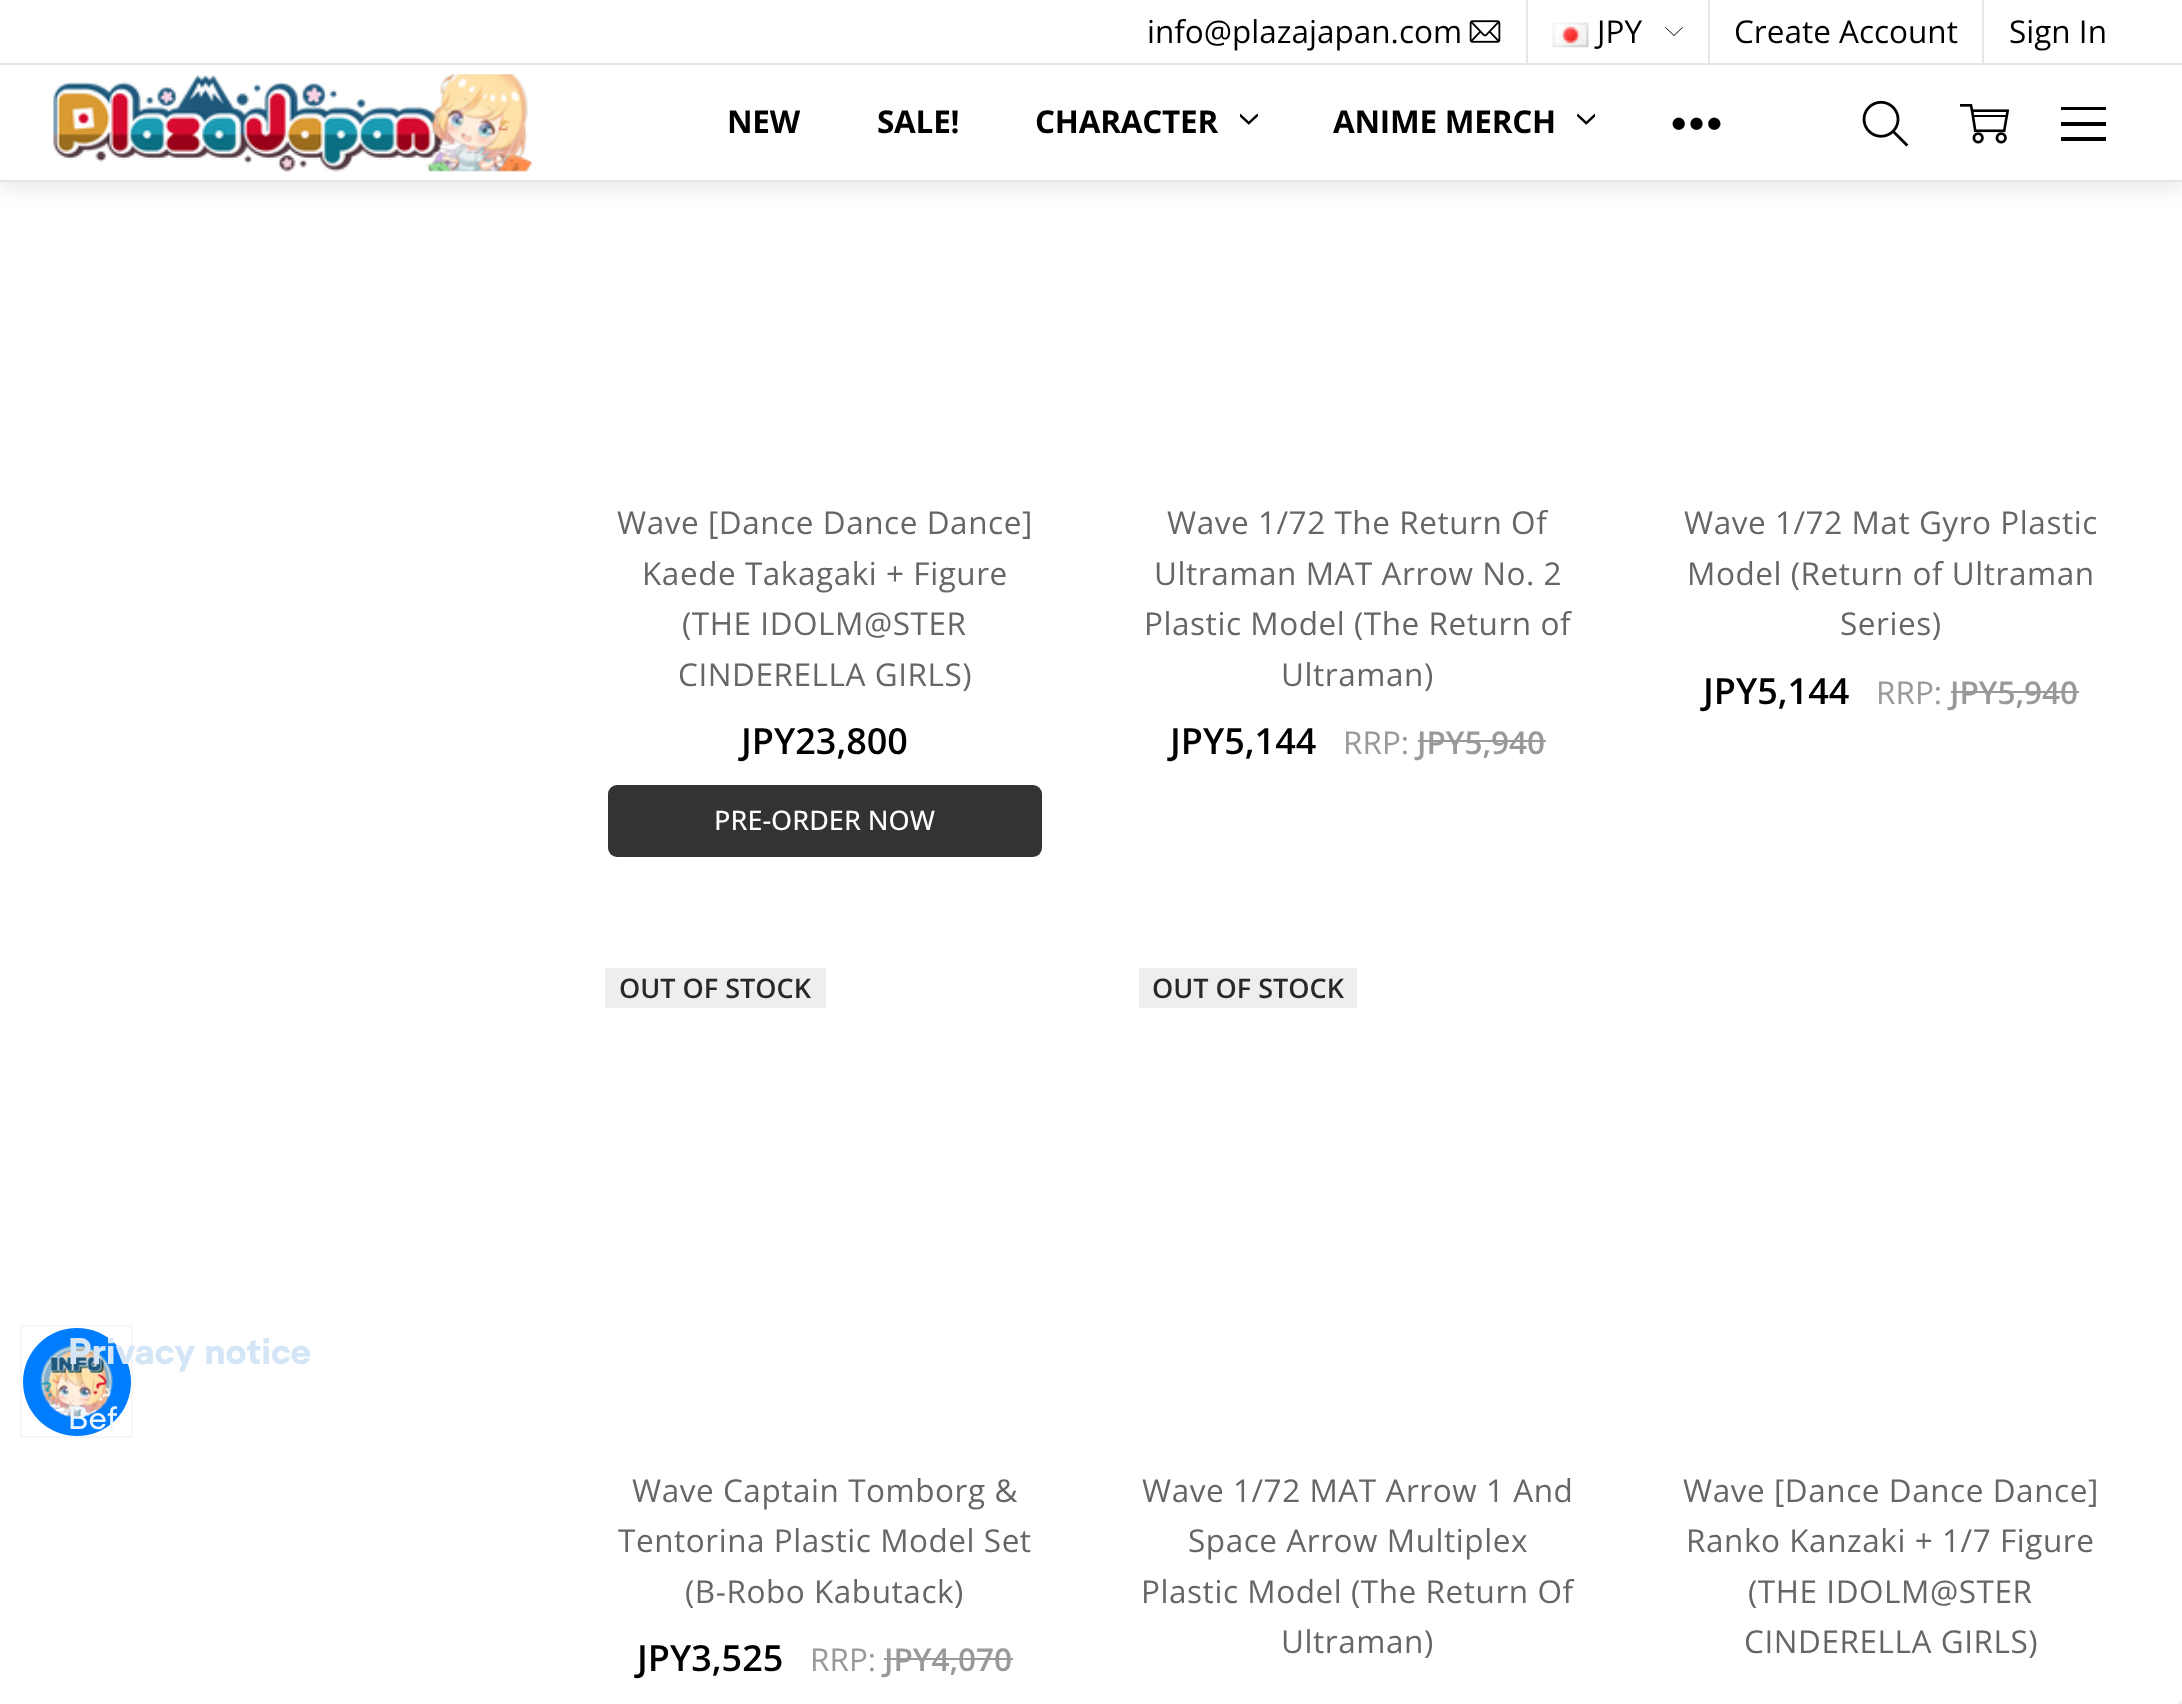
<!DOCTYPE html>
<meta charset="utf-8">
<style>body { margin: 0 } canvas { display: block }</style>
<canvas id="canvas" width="2182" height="1704"></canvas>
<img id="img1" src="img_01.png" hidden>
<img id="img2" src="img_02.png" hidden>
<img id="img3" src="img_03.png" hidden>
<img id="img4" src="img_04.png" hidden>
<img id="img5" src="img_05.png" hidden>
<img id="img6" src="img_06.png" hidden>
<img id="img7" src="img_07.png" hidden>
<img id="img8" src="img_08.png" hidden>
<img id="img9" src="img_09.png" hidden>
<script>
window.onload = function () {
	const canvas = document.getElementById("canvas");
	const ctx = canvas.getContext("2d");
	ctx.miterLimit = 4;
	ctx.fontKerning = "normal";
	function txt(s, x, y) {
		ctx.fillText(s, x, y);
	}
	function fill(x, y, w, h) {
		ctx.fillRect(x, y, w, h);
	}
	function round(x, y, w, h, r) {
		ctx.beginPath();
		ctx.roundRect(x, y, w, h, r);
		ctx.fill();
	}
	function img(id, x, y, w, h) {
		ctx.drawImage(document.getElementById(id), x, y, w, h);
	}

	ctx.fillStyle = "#FFFFFF";
	fill(0, 0, 2182, 1704);
	ctx.fillStyle = "rgba(0, 0, 0, 0.1)";
	ctx.filter = "blur(11px)";
	ctx.beginPath();
	ctx.rect(0, 5, 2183, 182);
	ctx.fill();
	ctx.filter = "none";
	ctx.fillStyle = "#FFFFFF";
	fill(0, 0, 2182, 180);
	ctx.fillStyle = "#E5E5E5";
	fill(0, 180, 2182, 2);
	ctx.fillStyle = "#E6E6E6";
	fill(0, 63, 2182, 2);
	img("img1", 1469, 20, 32, 23);
	fill(1526, 0, 2, 63);
	img("img2", 1552, 22, 37, 26);
	ctx.fillStyle = "#000000";
	ctx.beginPath();
	ctx.moveTo(1674, 35);
	ctx.lineTo(1682.5, 27);
	ctx.lineTo(1683, 27.5);
	ctx.lineTo(1674, 36);
	ctx.lineTo(1665, 27.5);
	ctx.lineTo(1665.5, 27);
	ctx.closePath();
	ctx.fill("evenodd");
	ctx.fillStyle = "#E6E6E6";
	fill(1708, 0, 2, 63);
	fill(1982, 0, 2, 63);
	img("img3", 53, 74, 479, 98);
	img("img4", 1240, 113, 18, 12);
	img("img5", 1577, 113, 18, 12);
	img("img6", 1672, 117, 49, 13);
	img("img7", 1862, 100, 47, 47);
	img("img8", 1960, 104, 49, 40);
	ctx.fillStyle = "#000000";
	fill(2061, 107, 45, 3);
	fill(2061, 122, 45, 4);
	fill(2061, 137, 45, 4);
	ctx.strokeStyle = "rgba(22, 26, 30, 0.04)";
	ctx.lineWidth = 2;
	ctx.strokeRect(21, 1326, 111, 111);
	ctx.fillStyle = "#007DFF";
	ctx.beginPath();
	ctx.arc(77, 1382, 54, 0, Math.PI * 2);
	ctx.fill();
	img("img9", 40, 1345, 73, 73);
	ctx.fillStyle = "#333333";
	round(608, 785, 434, 72, 9);
	ctx.fillStyle = "#999999";
	fill(1418, 740, 128, 2);
	fill(1951, 691, 128, 2);
	ctx.fillStyle = "#EEEEEE";
	fill(605, 968, 221, 40);
	ctx.fillStyle = "#999999";
	fill(884, 1658, 129, 2);
	ctx.fillStyle = "#EEEEEE";
	fill(1139, 968, 218, 40);
	ctx.fillStyle = "#F5F5F5";
	fill(2178, 1701, 4, 3);
	ctx.font = "31.5px Open Sans";
	ctx.fillStyle = "#000000";
	txt("info@plazajapan.com", 1147, 43);
	txt("JPY", 1597, 43);
	txt("Create Account", 1734, 43);
	txt("Sign In", 2009, 43);
	ctx.letterSpacing = "-0.25px";
	ctx.font = "bold 31.5px Open Sans";
	txt("NEW", 727, 133);
	txt("SALE!", 877, 133);
	txt("CHARACTER", 1035, 133);
	txt("ANIME MERCH", 1333, 133);
	ctx.letterSpacing = "0px";
	ctx.font = "bold 36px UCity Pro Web";
	ctx.fillStyle = "#D3E5F6";
	txt("Privacy notice", 68, 1364);
	ctx.font = "31.5px UCity Pro Web";
	ctx.fillStyle = "#EDF5FE";
	txt("Bef", 68, 1429);
	ctx.letterSpacing = "0.55px";
	ctx.font = "31.5px Open Sans";
	ctx.fillStyle = "#666666";
	txt("Wave [Dance Dance Dance]", 617, 534);
	txt("Kaede Takagaki + Figure", 642, 585);
	txt("(THE IDOLM@STER", 682, 635);
	txt("CINDERELLA GIRLS)", 678, 686);
	ctx.letterSpacing = "0px";
	ctx.font = "600 36px Open Sans";
	ctx.fillStyle = "#000000";
	txt("JPY23,800", 741, 754);
	ctx.font = "500 27px Open Sans";
	ctx.fillStyle = "#FFFFFF";
	txt("PRE-ORDER NOW", 714, 830);
	ctx.letterSpacing = "0.55px";
	ctx.font = "31.5px Open Sans";
	ctx.fillStyle = "#666666";
	txt("Wave 1/72 The Return Of", 1167, 534);
	txt("Ultraman MAT Arrow No. 2", 1154, 585);
	txt("Plastic Model (The Return of", 1144, 635);
	txt("Ultraman)", 1281, 686);
	ctx.letterSpacing = "0px";
	ctx.font = "600 36px Open Sans";
	ctx.fillStyle = "#000000";
	txt("JPY5,144", 1170, 754);
	ctx.font = "31.5px Open Sans";
	ctx.fillStyle = "#999999";
	txt("RRP:", 1343, 754);
	ctx.font = "600 31.5px Open Sans";
	txt("JPY5,940", 1417, 754);
	ctx.letterSpacing = "0.55px";
	ctx.font = "31.5px Open Sans";
	ctx.fillStyle = "#666666";
	txt("Wave 1/72 Mat Gyro Plastic", 1684, 534);
	txt("Model (Return of Ultraman", 1687, 585);
	txt("Series)", 1840, 635);
	ctx.letterSpacing = "0px";
	ctx.font = "600 36px Open Sans";
	ctx.fillStyle = "#000000";
	txt("JPY5,144", 1703, 704);
	ctx.font = "31.5px Open Sans";
	ctx.fillStyle = "#999999";
	txt("RRP:", 1876, 704);
	ctx.font = "600 31.5px Open Sans";
	txt("JPY5,940", 1950, 704);
	ctx.font = "600 27px Open Sans";
	ctx.fillStyle = "#282828";
	txt("OUT OF STOCK", 619, 998);
	ctx.letterSpacing = "0.55px";
	ctx.font = "31.5px Open Sans";
	ctx.fillStyle = "#666666";
	txt("Wave Captain Tomborg &", 632, 1502);
	txt("Tentorina Plastic Model Set", 618, 1552);
	txt("(B-Robo Kabutack)", 685, 1603);
	ctx.letterSpacing = "0px";
	ctx.font = "600 36px Open Sans";
	ctx.fillStyle = "#000000";
	txt("JPY3,525", 637, 1671);
	ctx.font = "31.5px Open Sans";
	ctx.fillStyle = "#999999";
	txt("RRP:", 810, 1671);
	ctx.font = "600 31.5px Open Sans";
	txt("JPY4,070", 884, 1671);
	ctx.font = "600 27px Open Sans";
	ctx.fillStyle = "#282828";
	txt("OUT OF STOCK", 1152, 998);
	ctx.letterSpacing = "0.55px";
	ctx.font = "31.5px Open Sans";
	ctx.fillStyle = "#666666";
	txt("Wave 1/72 MAT Arrow 1 And", 1142, 1502);
	txt("Space Arrow Multiplex", 1188, 1552);
	txt("Plastic Model (The Return Of", 1141, 1603);
	txt("Ultraman)", 1281, 1653);
	txt("Wave [Dance Dance Dance]", 1683, 1502);
	txt("Ranko Kanzaki + 1/7 Figure", 1686, 1552);
	txt("(THE IDOLM@STER", 1748, 1603);
	txt("CINDERELLA GIRLS)", 1744, 1653);
};
</script>
